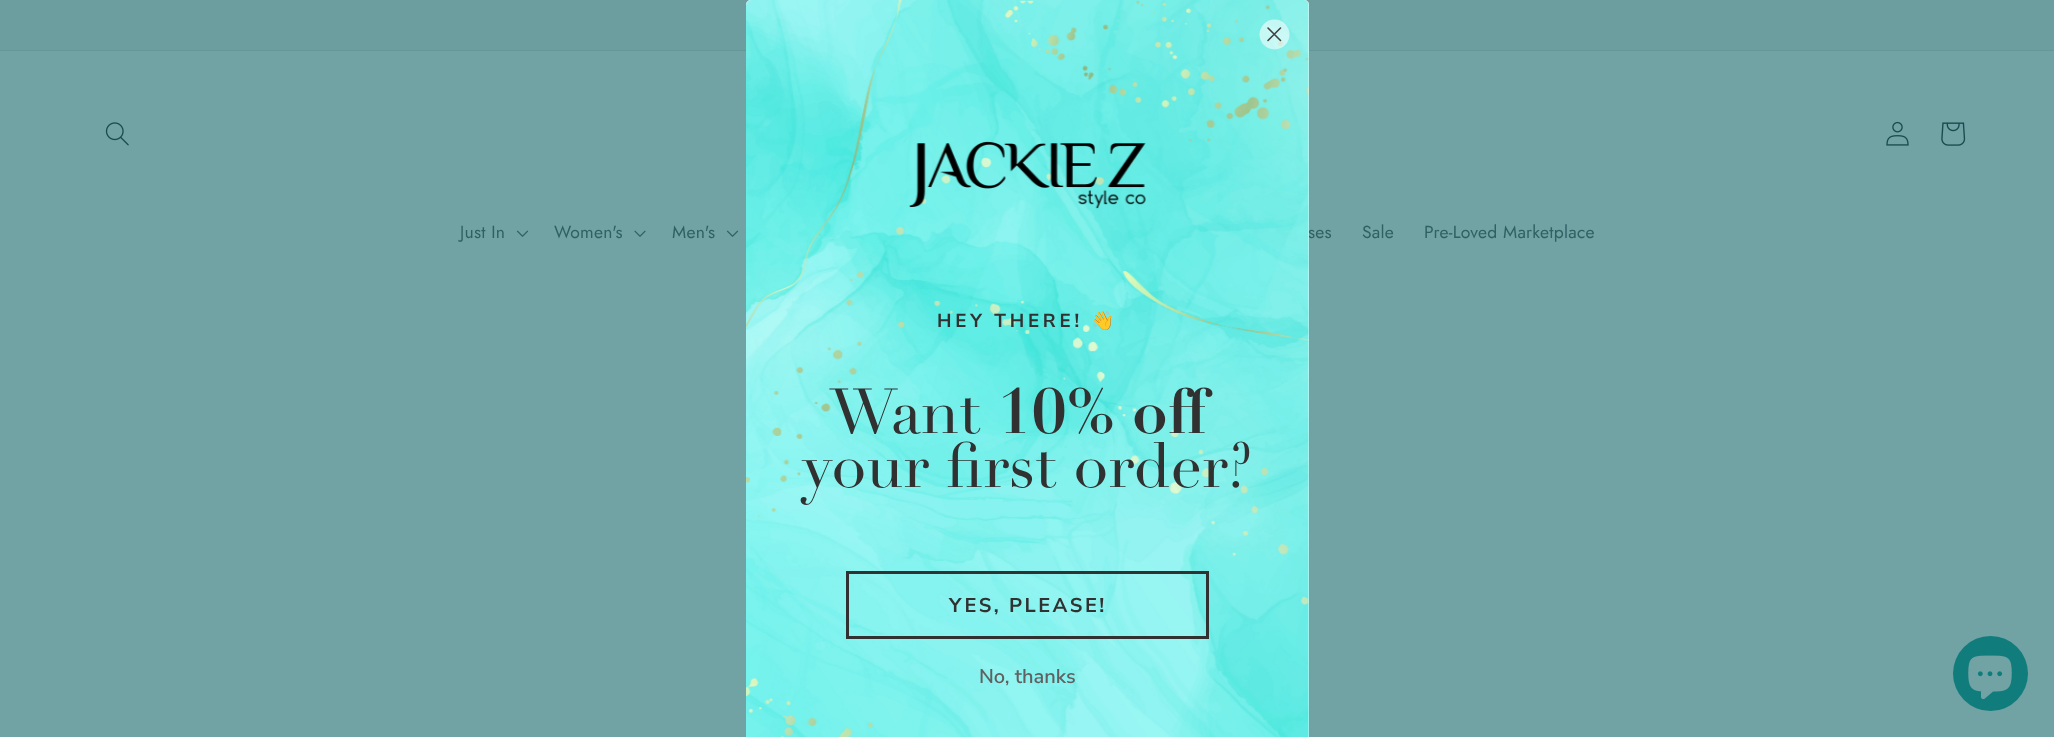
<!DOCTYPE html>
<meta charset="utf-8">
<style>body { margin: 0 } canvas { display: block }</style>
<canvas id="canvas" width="2054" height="737"></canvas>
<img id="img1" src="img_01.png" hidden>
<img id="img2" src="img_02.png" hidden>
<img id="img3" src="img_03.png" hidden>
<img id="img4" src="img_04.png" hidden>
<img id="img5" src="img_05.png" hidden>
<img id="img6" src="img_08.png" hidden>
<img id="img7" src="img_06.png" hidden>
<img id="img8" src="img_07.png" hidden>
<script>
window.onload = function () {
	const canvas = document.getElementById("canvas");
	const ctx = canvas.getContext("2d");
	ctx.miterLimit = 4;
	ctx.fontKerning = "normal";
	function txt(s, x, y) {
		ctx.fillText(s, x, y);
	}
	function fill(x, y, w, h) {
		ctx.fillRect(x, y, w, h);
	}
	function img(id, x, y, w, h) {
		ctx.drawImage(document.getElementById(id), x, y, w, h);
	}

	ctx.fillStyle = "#71A3A5";
	fill(0, 0, 2054, 737);
	ctx.fillStyle = "#6C9EA0";
	fill(0, 0, 2054, 50);
	ctx.fillStyle = "#659799";
	fill(0, 50, 2054, 1);
	img("img1", 105, 122, 24, 24);
	img("img2", 1886, 121, 23, 25);
	img("img3", 1941, 122, 25, 24);
	img("img4", 516, 230, 13, 7);
	img("img5", 634, 230, 12, 7);
	img("img4", 726, 230, 13, 7);
	ctx.fillStyle = "#117C7C";
	ctx.beginPath();
	ctx.arc(1990.5, 673.5, 37.5, 0, Math.PI * 2);
	ctx.fill();
	img("img6", 1968, 655, 44, 45);
	ctx.letterSpacing = "0.25px";
	ctx.font = "17.5px Jost";
	ctx.fillStyle = "#2F6163";
	txt("Just In", 460, 238);
	txt("Women's", 554, 238);
	txt("Men's", 672, 238);
	txt("ses", 1308, 238);
	txt("Sale", 1362, 238);
	txt("Pre-Loved Marketplace", 1424, 238);
	ctx.fillStyle = "#FFFFFF";
	ctx.beginPath();
	ctx.moveTo(751, 0);
	ctx.lineTo(1304, 0);
	ctx.bezierCurveTo(1307, 0, 1309, 2, 1309, 5);
	ctx.lineTo(1309, 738);
	ctx.lineTo(746, 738);
	ctx.lineTo(746, 5);
	ctx.bezierCurveTo(746, 2, 748, 0, 751, 0);
	ctx.closePath();
	ctx.fill();
	img("img7", 746, 0, 563, 737);
	ctx.fillStyle = "rgba(255, 255, 255, 0.57)";
	ctx.beginPath();
	ctx.arc(1274.5, 34.5, 15, 0, Math.PI * 2);
	ctx.fill();
	ctx.beginPath();
	ctx.moveTo(1268, 28);
	ctx.lineTo(1280.5, 40.5);
	ctx.moveTo(1268, 40.5);
	ctx.lineTo(1280.5, 28);
	ctx.closePath();
	ctx.strokeStyle = "#414141";
	ctx.lineWidth = 1.6;
	ctx.lineCap = "round";
	ctx.lineJoin = "round";
	ctx.stroke();
	img("img8", 909, 141, 237, 68);
	ctx.letterSpacing = "3.75px";
	ctx.font = "bold 18.75px Nunito Sans";
	ctx.fillStyle = "#313131";
	txt("HEY THERE!", 937, 327);
	ctx.font = "bold 18.75px Noto Color Emoji";
	ctx.fillStyle = "#000000";
	txt("👋", 1091, 327);
	ctx.letterSpacing = "0px";
	ctx.font = "62.5px Didot";
	ctx.fillStyle = "#313131";
	txt("Want", 830, 433);
	ctx.font = "bold 62.5px Didot";
	txt("10% off", 997, 433);
	ctx.font = "62.5px Didot";
	txt("your first order?", 802, 487);
	ctx.strokeStyle = "#313131";
	ctx.lineWidth = 3;
	ctx.lineJoin = "miter";
	ctx.strokeRect(847.5, 572.5, 360, 65);
	ctx.letterSpacing = "2.5px";
	ctx.font = "bold 20px Nunito Sans";
	txt("YES, PLEASE!", 949, 612);
	ctx.letterSpacing = "0px";
	ctx.font = "600 20px Nunito Sans";
	ctx.fillStyle = "#616060";
	txt("No, thanks", 979, 683);
};
</script>
